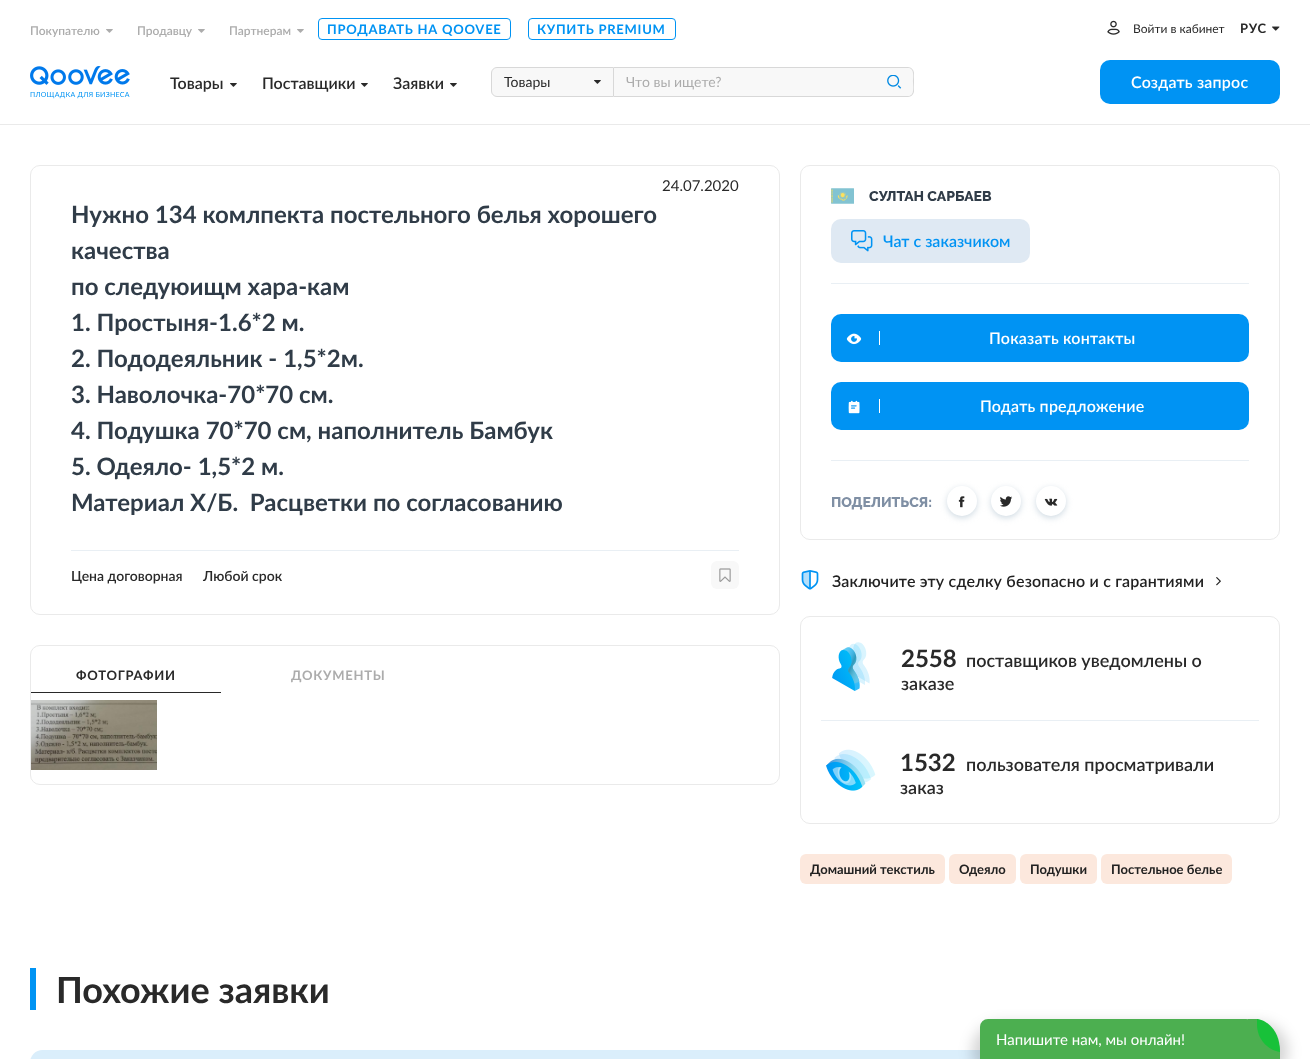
<!DOCTYPE html>
<meta charset="utf-8">
<style>body { margin: 0 } canvas { display: block }</style>
<canvas id="canvas" width="1310" height="1059"></canvas>
<img id="img1" src="img_01.png" hidden>
<img id="img2" src="img_02.png" hidden>
<img id="img3" src="img_03.png" hidden>
<img id="img4" src="img_04.png" hidden>
<img id="img5" src="img_05.png" hidden>
<img id="img6" src="img_06.png" hidden>
<img id="img7" src="img_07.png" hidden>
<img id="img8" src="img_08.png" hidden>
<img id="img9" src="img_09.png" hidden>
<img id="img10" src="img_10.png" hidden>
<img id="img11" src="img_11.png" hidden>
<img id="img12" src="img_12.png" hidden>
<img id="img13" src="img_13.png" hidden>
<img id="img14" src="img_14.png" hidden>
<img id="img15" src="img_15.png" hidden>
<img id="img16" src="img_16.png" hidden>
<img id="img17" src="img_17.png" hidden>
<img id="img18" src="img_18.png" hidden>
<img id="img19" src="img_19.png" hidden>
<img id="img20" src="img_20.png" hidden>
<script>
window.onload = function () {
	const canvas = document.getElementById("canvas");
	const ctx = canvas.getContext("2d");
	ctx.miterLimit = 4;
	ctx.fontKerning = "normal";
	function txt(s, x, y) {
		ctx.fillText(s, x, y);
	}
	function fill(x, y, w, h) {
		ctx.fillRect(x, y, w, h);
	}
	function round(x, y, w, h, r) {
		ctx.beginPath();
		ctx.roundRect(x, y, w, h, r);
		ctx.fill();
	}
	function img(id, x, y, w, h) {
		ctx.drawImage(document.getElementById(id), x, y, w, h);
	}

	ctx.fillStyle = "#FFFFFF";
	fill(0, 0, 1310, 1059);
	ctx.fillStyle = "#EAEAEA";
	fill(0, 124, 1310, 1);
	img("img1", 106, 29, 7, 4);
	img("img1", 198, 29, 7, 4);
	img("img1", 297, 29, 7, 4);
	ctx.beginPath();
	ctx.roundRect(318.5, 18.5, 192, 21, 3.5);
	ctx.strokeStyle = "#0093F3";
	ctx.stroke();
	ctx.beginPath();
	ctx.roundRect(528.5, 18.5, 147, 21, 3.5);
	ctx.stroke();
	img("img2", 1107, 20, 13, 15);
	img("img3", 1272, 26, 8, 5);
	img("img4", 230, 83, 7, 4);
	img("img4", 361, 83, 7, 4);
	img("img4", 450, 83, 7, 4);
	ctx.fillStyle = "#F8F8F8";
	ctx.beginPath();
	ctx.roundRect(491.5, 67.5, 122, 29, [5.5, 0, 0, 5.5]);
	ctx.fill();
	ctx.strokeStyle = "#D8D8D8";
	ctx.stroke();
	img("img5", 594, 80, 7, 4);
	ctx.beginPath();
	ctx.roundRect(614, 68, 299, 28, [0, 5, 5, 0]);
	ctx.fill();
	ctx.fillStyle = "#D8D8D8";
	ctx.beginPath();
	ctx.moveTo(614, 67);
	ctx.lineTo(908, 67);
	ctx.bezierCurveTo(911, 67, 914, 70, 914, 73);
	ctx.lineTo(914, 91);
	ctx.bezierCurveTo(914, 94, 911, 97, 908, 97);
	ctx.lineTo(614, 97);
	ctx.closePath();
	ctx.moveTo(614, 68);
	ctx.lineTo(908, 68);
	ctx.bezierCurveTo(915, 68, 913, 78, 913, 82);
	ctx.bezierCurveTo(913, 86, 915, 96, 908, 96);
	ctx.lineTo(614, 96);
	ctx.closePath();
	ctx.fill("evenodd");
	img("img6", 887, 75, 15, 14);
	img("img7", 30, 66, 100, 19);
	ctx.fillStyle = "#0093F3";
	round(1100, 60, 180, 44, 10);
	ctx.beginPath();
	ctx.roundRect(30.5, 165.5, 749, 449, 9.5);
	ctx.strokeStyle = "#EAEAEA";
	ctx.stroke();
	ctx.fillStyle = "#E9EFF4";
	fill(71, 550, 668, 1);
	ctx.fillStyle = "#F8F8F8";
	round(711, 561, 28, 28, 6);
	img("img8", 719, 568, 12, 14);
	ctx.beginPath();
	ctx.roundRect(30.5, 645.5, 749, 139, 9.5);
	ctx.stroke();
	ctx.fillStyle = "#292929";
	fill(31, 692, 190, 1);
	img("img9", 31, 700, 126, 70);
	ctx.beginPath();
	ctx.roundRect(800.5, 165.5, 479, 374, 9.5);
	ctx.stroke();
	ctx.fillStyle = "#E9EFF4";
	fill(831, 283, 418, 1);
	img("img10", 831, 188, 23, 16);
	ctx.fillStyle = "#DFE9F3";
	round(831, 219, 199, 44, 10);
	img("img11", 851, 230, 22, 22);
	ctx.fillStyle = "#E9EFF4";
	fill(831, 460, 418, 1);
	ctx.fillStyle = "#0093F3";
	round(831, 314, 418, 48, 10);
	img("img12", 846, 333, 16, 12);
	ctx.fillStyle = "#FFFFFF";
	fill(879, 331, 1, 14);
	ctx.fillStyle = "#0093F3";
	round(831, 382, 418, 48, 10);
	img("img13", 848, 400, 12, 14);
	ctx.fillStyle = "#FFFFFF";
	fill(879, 399, 1, 14);
	ctx.fillStyle = "#CFDAE2";
	ctx.filter = "blur(3px)";
	ctx.beginPath();
	ctx.roundRect(947, 488, 30, 30, 15);
	ctx.fill();
	ctx.filter = "none";
	ctx.fillStyle = "#FFFFFF";
	ctx.beginPath();
	ctx.arc(962, 501, 15, 0, Math.PI * 2);
	ctx.fill();
	img("img14", 958, 496, 7, 12);
	ctx.fillStyle = "#CFDAE2";
	ctx.filter = "blur(3px)";
	ctx.beginPath();
	ctx.roundRect(991, 488, 30, 30, 15);
	ctx.fill();
	ctx.filter = "none";
	ctx.fillStyle = "#FFFFFF";
	ctx.beginPath();
	ctx.arc(1006, 501, 15, 0, Math.PI * 2);
	ctx.fill();
	img("img15", 1000, 496, 13, 11);
	ctx.fillStyle = "#CFDAE2";
	ctx.filter = "blur(3px)";
	ctx.beginPath();
	ctx.roundRect(1036, 488, 30, 30, 15);
	ctx.fill();
	ctx.filter = "none";
	ctx.fillStyle = "#FFFFFF";
	ctx.beginPath();
	ctx.arc(1051, 501, 15, 0, Math.PI * 2);
	ctx.fill();
	img("img16", 1044, 498, 14, 8);
	img("img17", 801, 570, 18, 20);
	img("img18", 1216, 577, 5, 9);
	ctx.beginPath();
	ctx.roundRect(800.5, 616.5, 479, 207, 9.5);
	ctx.stroke();
	ctx.fillStyle = "#E9EFF4";
	fill(821, 720, 438, 1);
	img("img19", 832, 642, 38, 49);
	img("img20", 826, 749, 50, 42);
	ctx.fillStyle = "#FCE8DD";
	round(800, 854, 145, 30, 6);
	round(949, 854, 67, 30, 6);
	round(1020, 854, 77, 30, 6);
	round(1101, 854, 131, 30, 6);
	ctx.fillStyle = "#0093F3";
	fill(30, 968, 6, 42);
	ctx.fillStyle = "#DAEEFB";
	round(30, 1050, 1250, 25, 16);
	ctx.fillStyle = "rgba(0, 0, 0, 0.17)";
	ctx.filter = "blur(7px)";
	ctx.beginPath();
	ctx.roundRect(972, 1023, 316, 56, 42);
	ctx.fill();
	ctx.filter = "none";
	ctx.fillStyle = "#4CAF50";
	ctx.beginPath();
	ctx.roundRect(980, 1019, 300, 40, [8, 34, 0, 0]);
	ctx.fill();
	ctx.save();
	ctx.beginPath();
	ctx.rect(1248, 1019, 32, 34);
	ctx.clip();
	ctx.beginPath();
	ctx.moveTo(1248, 1019);
	ctx.lineTo(1257, 1019);
	ctx.lineTo(1280, 1052);
	ctx.lineTo(1280, 1059);
	ctx.lineTo(1248, 1059);
	ctx.closePath();
	ctx.fill("evenodd");
	ctx.restore();
	ctx.fillStyle = "#18C139";
	ctx.beginPath();
	ctx.moveTo(1257, 1019);
	ctx.bezierCurveTo(1260.5, 1019, 1280, 1024.5, 1280, 1052);
	ctx.bezierCurveTo(1267, 1050, 1257, 1038.5, 1257, 1024.5);
	ctx.closePath();
	ctx.fill("evenodd");
	ctx.font = "600 12px Lato";
	ctx.fillStyle = "#ACACAC";
	txt("Покупателю", 30, 35);
	txt("Продавцу", 137, 35);
	txt("Партнерам", 229, 35);
	ctx.letterSpacing = "0.75px";
	ctx.font = "bold 13px Lato";
	ctx.fillStyle = "#0093F3";
	txt("ПРОДАВАТЬ НА QOOVEE", 327, 34);
	txt("КУПИТЬ PREMIUM", 537, 34);
	ctx.letterSpacing = "0px";
	ctx.font = "12px Lato";
	ctx.fillStyle = "#292929";
	txt("Войти в кабинет", 1133, 33);
	ctx.letterSpacing = "0.75px";
	ctx.font = "bold 13px Lato";
	txt("РУС", 1240, 33);
	ctx.letterSpacing = "0px";
	ctx.font = "600 16px Lato";
	txt("Товары", 170, 89);
	txt("Поставщики", 262, 89);
	txt("Заявки", 393, 89);
	ctx.font = "14px Lato";
	txt("Товары", 504, 87);
	ctx.fillStyle = "#ACACAC";
	txt("Что вы ищете?", 626, 87);
	ctx.letterSpacing = "0.25px";
	ctx.font = "7px Lato";
	ctx.fillStyle = "#0093F3";
	txt("ПЛОЩАДКА ДЛЯ БИЗНЕСА", 30, 97);
	ctx.letterSpacing = "0.2px";
	ctx.font = "600 16px Lato";
	ctx.fillStyle = "#FFFFFF";
	txt("Создать запрос", 1131, 88);
	ctx.letterSpacing = "0px";
	ctx.font = "15px Lato";
	ctx.fillStyle = "#292929";
	txt("24.07.2020", 662, 191);
	ctx.font = "bold 24px Lato";
	ctx.fillStyle = "#303C48";
	txt("Нужно 134 комлпекта постельного белья хорошего", 71, 223);
	txt("качества", 71, 259);
	txt("по следуюищм хара-кам", 71, 295);
	txt("1. Простыня-1.6*2 м.", 71, 331);
	txt("2. Пододеяльник - 1,5*2м.", 71, 367);
	txt("3. Наволочка-70*70 см.", 71, 403);
	txt("4. Подушка 70*70 см, наполнитель Бамбук", 71, 439);
	txt("5. Одеяло- 1,5*2 м.", 71, 475);
	txt("Материал Х/Б.  Расцветки по согласованию", 71, 511);
	ctx.font = "600 14px Lato";
	ctx.fillStyle = "#292929";
	txt("Цена договорная", 71, 581);
	txt("Любой срок", 203, 581);
	ctx.letterSpacing = "0.75px";
	ctx.font = "bold 13px Lato";
	txt("ФОТОГРАФИИ", 76, 680);
	ctx.fillStyle = "#ACACAC";
	txt("ДОКУМЕНТЫ", 291, 680);
	ctx.letterSpacing = "0px";
	ctx.font = "800 14px Raleway";
	ctx.fillStyle = "#303C48";
	txt("СУЛТАН САРБАЕВ", 869, 201);
	ctx.font = "600 16px Lato";
	ctx.fillStyle = "#0093F3";
	txt("Чат с заказчиком", 883, 247);
	ctx.letterSpacing = "0.2px";
	ctx.fillStyle = "#FFFFFF";
	txt("Показать контакты", 989, 344);
	txt("Подать предложение", 980, 412);
	ctx.letterSpacing = "0px";
	ctx.font = "800 14px Raleway";
	ctx.fillStyle = "#7F8FA4";
	txt("ПОДЕЛИТЬСЯ:", 831, 507);
	ctx.letterSpacing = "0.2px";
	ctx.font = "600 16px Lato";
	ctx.fillStyle = "#212121";
	txt("Заключите эту сделку безопасно и с гарантиями", 832, 587);
	ctx.letterSpacing = "0px";
	ctx.font = "bold 24px Lato";
	ctx.fillStyle = "#292929";
	txt("2558", 901, 667);
	ctx.font = "600 18px Lato";
	txt("поставщиков уведомлены о", 966, 667);
	txt("заказе", 901, 690);
	ctx.font = "bold 24px Lato";
	txt("1532", 900, 771);
	ctx.font = "600 18px Lato";
	txt("пользователя просматривали", 966, 771);
	txt("заказ", 900, 794);
	ctx.font = "bold 13px Lato";
	ctx.fillStyle = "#212121";
	txt("Домашний текстиль", 810, 874);
	txt("Одеяло", 959, 874);
	txt("Подушки", 1030, 874);
	txt("Постельное белье", 1111, 874);
	ctx.font = "bold 36px Lato";
	ctx.fillStyle = "#292929";
	txt("Похожие заявки", 56, 1003);
	ctx.font = "15px Lato";
	ctx.fillStyle = "#FFFFFF";
	txt("Напишите нам, мы онлайн!", 996, 1045);
};
</script>
